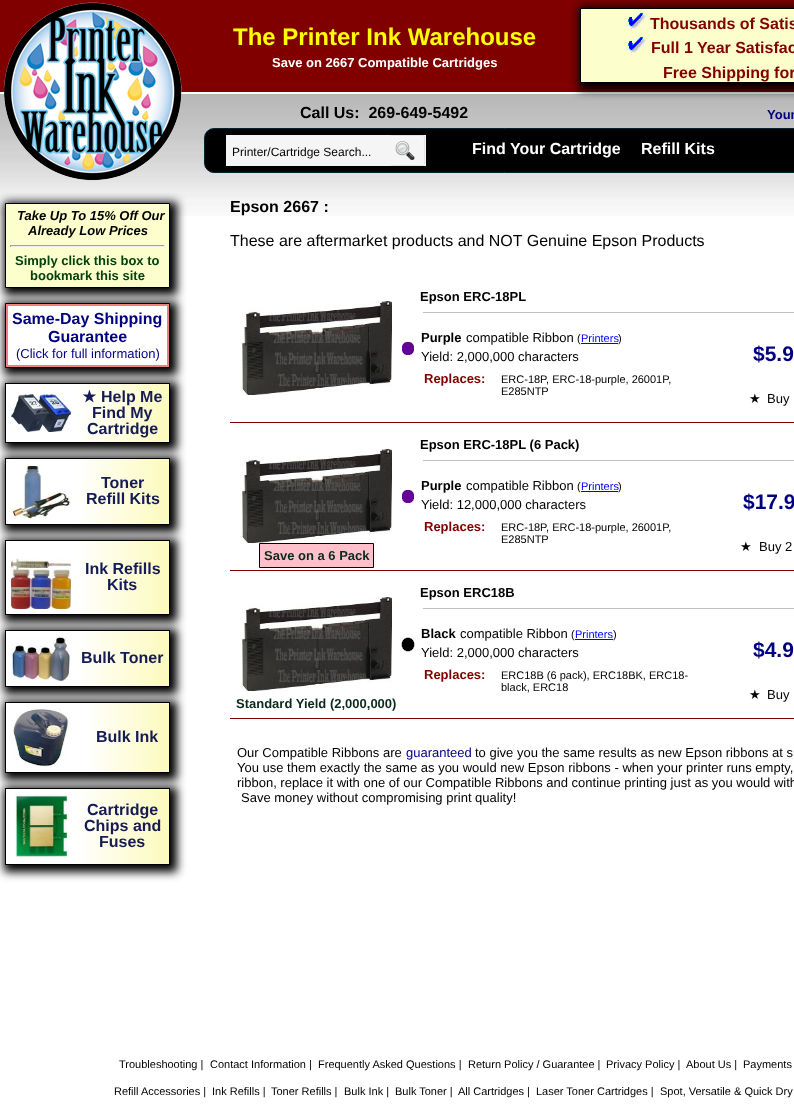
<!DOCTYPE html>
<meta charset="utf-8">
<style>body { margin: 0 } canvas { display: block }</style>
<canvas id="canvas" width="794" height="1109"></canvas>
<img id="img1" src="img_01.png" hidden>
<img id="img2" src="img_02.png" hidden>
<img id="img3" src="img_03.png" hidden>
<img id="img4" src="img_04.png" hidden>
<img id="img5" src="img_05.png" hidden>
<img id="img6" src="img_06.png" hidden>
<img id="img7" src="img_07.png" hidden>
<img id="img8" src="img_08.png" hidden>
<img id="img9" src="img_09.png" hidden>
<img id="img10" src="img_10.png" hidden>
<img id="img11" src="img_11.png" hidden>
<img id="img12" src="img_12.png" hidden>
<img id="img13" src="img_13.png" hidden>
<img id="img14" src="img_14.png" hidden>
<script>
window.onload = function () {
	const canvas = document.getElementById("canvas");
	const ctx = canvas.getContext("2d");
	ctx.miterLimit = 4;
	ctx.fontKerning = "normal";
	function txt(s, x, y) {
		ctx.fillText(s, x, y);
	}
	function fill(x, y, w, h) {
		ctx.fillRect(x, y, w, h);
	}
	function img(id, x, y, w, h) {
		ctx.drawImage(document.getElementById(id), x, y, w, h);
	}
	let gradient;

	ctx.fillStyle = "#FFFFFF";
	fill(0, 0, 794, 1109);
	img("img1", 0, 0, 794, 216);
	img("img2", 3, 2, 179, 179);
	ctx.fillStyle = "#000000";
	ctx.filter = "blur(5px)";
	ctx.beginPath();
	ctx.rect(579, 7, 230, 83);
	ctx.fill();
	ctx.filter = "none";
	ctx.fillStyle = "#FCFECC";
	ctx.beginPath();
	ctx.rect(580.5, 8.5, 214, 74);
	ctx.fill();
	ctx.strokeStyle = "#000000";
	ctx.stroke();
	img("img3", 627, 13, 19, 16);
	img("img3", 627, 37, 19, 16);
	ctx.fillStyle = "#000000";
	ctx.beginPath();
	ctx.roundRect(204.5, 128.5, 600, 44, 9.5);
	ctx.fill();
	ctx.strokeStyle = "#002232";
	ctx.stroke();
	ctx.fillStyle = "#F5F5F5";
	fill(226, 135, 200, 31);
	img("img4", 391, 135, 34, 31);
	ctx.fillStyle = "#000000";
	ctx.filter = "blur(5px)";
	ctx.beginPath();
	ctx.rect(4, 202, 173, 93);
	ctx.fill();
	ctx.filter = "none";
	ctx.fillStyle = "#FCFECC";
	ctx.beginPath();
	ctx.rect(5.5, 203.5, 164, 84);
	ctx.fill();
	ctx.strokeStyle = "#000000";
	ctx.stroke();
	ctx.fillStyle = "#9F9F9F";
	fill(10, 245, 155, 1);
	ctx.fillStyle = "#EEEEEE";
	fill(164, 245, 1, 2);
	fill(10, 246, 155, 1);
	ctx.fillStyle = "#9F9F9F";
	fill(10, 245, 1, 2);
	ctx.fillStyle = "#000000";
	ctx.filter = "blur(5px)";
	ctx.beginPath();
	ctx.rect(4, 302, 173, 73);
	ctx.fill();
	ctx.filter = "none";
	ctx.fillStyle = "#F08080";
	ctx.beginPath();
	ctx.rect(5.5, 303.5, 164, 64);
	ctx.fill();
	ctx.stroke();
	ctx.fillStyle = "#FFFFFF";
	fill(8, 306, 159, 59);
	ctx.fillStyle = "#000000";
	ctx.filter = "blur(5px)";
	ctx.beginPath();
	ctx.rect(4, 382, 173, 68);
	ctx.fill();
	ctx.filter = "none";
	ctx.strokeRect(5.5, 383.5, 164, 59);
	ctx.fillStyle = "#FFFFFF";
	fill(6, 384, 70, 58);
	img("img5", 11, 394, 60, 38);
	gradient = ctx.createLinearGradient(76, 413, 169, 413);
	gradient.addColorStop(0, "#FFFFFF");
	gradient.addColorStop(1, "#FCFABC");
	ctx.fillStyle = gradient;
	fill(76, 384, 93, 58);
	ctx.fillStyle = "#000000";
	ctx.filter = "blur(5px)";
	ctx.beginPath();
	ctx.rect(4, 457, 173, 75);
	ctx.fill();
	ctx.filter = "none";
	ctx.strokeRect(5.5, 458.5, 164, 66);
	ctx.fillStyle = "#FFFFFF";
	fill(6, 459, 70, 65);
	img("img6", 12, 465, 59, 54);
	gradient = ctx.createLinearGradient(76, 492, 169, 492);
	gradient.addColorStop(0, "#FFFFFF");
	gradient.addColorStop(1, "#FCFABC");
	ctx.fillStyle = gradient;
	fill(76, 459, 93, 65);
	ctx.fillStyle = "#000000";
	ctx.filter = "blur(5px)";
	ctx.beginPath();
	ctx.rect(4, 539, 173, 83);
	ctx.fill();
	ctx.filter = "none";
	ctx.strokeRect(5.5, 540.5, 164, 74);
	ctx.fillStyle = "#FFFFFF";
	fill(6, 541, 70, 73);
	img("img7", 11, 558, 60, 51);
	gradient = ctx.createLinearGradient(76, 578, 169, 578);
	gradient.addColorStop(0, "#FFFFFF");
	gradient.addColorStop(1, "#FCFABC");
	ctx.fillStyle = gradient;
	fill(76, 541, 93, 73);
	ctx.fillStyle = "#000000";
	ctx.filter = "blur(5px)";
	ctx.beginPath();
	ctx.rect(4, 629, 173, 65);
	ctx.fill();
	ctx.filter = "none";
	ctx.strokeRect(5.5, 630.5, 164, 56);
	ctx.fillStyle = "#FFFFFF";
	fill(6, 631, 70, 55);
	img("img8", 11, 637, 60, 44);
	gradient = ctx.createLinearGradient(76, 659, 169, 659);
	gradient.addColorStop(0, "#FFFFFF");
	gradient.addColorStop(1, "#FCFABC");
	ctx.fillStyle = gradient;
	fill(76, 631, 93, 55);
	ctx.fillStyle = "#000000";
	ctx.filter = "blur(5px)";
	ctx.beginPath();
	ctx.rect(4, 701, 173, 79);
	ctx.fill();
	ctx.filter = "none";
	ctx.strokeRect(5.5, 702.5, 164, 70);
	ctx.fillStyle = "#FFFFFF";
	fill(6, 703, 80, 69);
	img("img9", 11, 708, 58, 59);
	gradient = ctx.createLinearGradient(86, 738, 169, 738);
	gradient.addColorStop(0, "#FFFFFF");
	gradient.addColorStop(1, "#FCFABC");
	ctx.fillStyle = gradient;
	fill(86, 703, 83, 69);
	ctx.fillStyle = "#000000";
	ctx.filter = "blur(5px)";
	ctx.beginPath();
	ctx.rect(4, 787, 173, 85);
	ctx.fill();
	ctx.filter = "none";
	ctx.strokeRect(5.5, 788.5, 164, 76);
	ctx.fillStyle = "#FFFFFF";
	fill(6, 789, 70, 75);
	img("img10", 15, 794, 54, 64);
	gradient = ctx.createLinearGradient(76, 827, 169, 827);
	gradient.addColorStop(0, "#FFFFFF");
	gradient.addColorStop(1, "#FCFABC");
	ctx.fillStyle = gradient;
	fill(76, 789, 93, 75);
	img("img11", 242, 301, 150, 94);
	img("img12", 402, 342, 12, 13);
	ctx.fillStyle = "#C0C0C0";
	fill(423, 312, 371, 1);
	ctx.fillStyle = "#0000FF";
	fill(581, 343, 37, 1);
	ctx.fillStyle = "#800000";
	fill(230, 422, 564, 1);
	img("img12", 402, 490, 12, 13);
	ctx.fillStyle = "#C0C0C0";
	fill(423, 460, 371, 1);
	ctx.fillStyle = "#0000FF";
	fill(581, 491, 37, 1);
	img("img13", 242, 449, 150, 94);
	ctx.fillStyle = "#FFC0CB";
	ctx.beginPath();
	ctx.rect(259.5, 543.5, 114, 24);
	ctx.fill();
	ctx.stroke();
	ctx.fillStyle = "#800000";
	fill(230, 570, 564, 1);
	img("img14", 401, 637, 14, 15);
	ctx.fillStyle = "#C0C0C0";
	fill(423, 608, 371, 1);
	ctx.fillStyle = "#0000FF";
	fill(575, 639, 38, 1);
	img("img13", 242, 597, 150, 94);
	ctx.fillStyle = "#800000";
	fill(230, 718, 564, 1);
	ctx.font = "bold 24px Liberation Sans";
	ctx.fillStyle = "#FFFF00";
	txt("The Printer Ink Warehouse", 233, 45);
	ctx.font = "bold 13px Liberation Sans";
	ctx.fillStyle = "#FFFFFF";
	txt("Save on 2667 Compatible Cartridges", 272, 67);
	ctx.font = "bold 16px Liberation Sans";
	ctx.fillStyle = "#800000";
	txt("Thousands of Satis", 650, 29);
	txt("Full 1 Year Satisfac", 651, 53);
	txt("Free Shipping for", 663, 78);
	ctx.fillStyle = "#000000";
	txt("Call Us:  269-649-5492", 300, 118);
	ctx.font = "bold 13px Liberation Sans";
	ctx.fillStyle = "#000080";
	txt("Your", 767, 119);
	ctx.font = "12px Liberation Sans";
	ctx.fillStyle = "#000000";
	txt("Printer/Cartridge Search...", 232, 156);
	ctx.font = "bold 16px Liberation Sans";
	ctx.fillStyle = "#FFFFFF";
	txt("Find Your Cartridge", 472, 154);
	txt("Refill Kits", 641, 154);
	ctx.font = "italic bold 13px Liberation Sans";
	ctx.fillStyle = "#000000";
	txt("Take Up To 15% Off Our", 17, 220);
	txt("Already Low Prices", 28, 235);
	ctx.font = "bold 13px Liberation Sans";
	ctx.fillStyle = "#00420C";
	txt("Simply click this box to", 15, 265);
	txt("bookmark this site", 30, 280);
	ctx.font = "bold 16px Liberation Sans";
	ctx.fillStyle = "#000080";
	txt("Same-Day Shipping", 12, 324);
	txt("Guarantee", 48, 342);
	ctx.font = "13px Liberation Sans";
	txt("(Click for full information)", 16, 358);
	ctx.font = "bold 16px DejaVu Sans";
	ctx.fillStyle = "#151B54";
	txt("★", 82, 402);
	ctx.font = "bold 16px Liberation Sans";
	txt("Help Me", 101, 402);
	txt("Find My", 92, 418);
	txt("Cartridge", 87, 434);
	txt("Toner", 101, 488);
	txt("Refill Kits", 86, 504);
	txt("Ink Refills", 85, 574);
	txt("Kits", 107, 590);
	txt("Bulk Toner", 81, 663);
	txt("Bulk Ink", 96, 742);
	txt("Cartridge", 87, 815);
	txt("Chips and", 84, 831);
	txt("Fuses", 99, 847);
	ctx.fillStyle = "#000000";
	txt("Epson 2667 :", 230, 212);
	ctx.font = "16px Liberation Sans";
	txt("These are aftermarket products and NOT Genuine Epson Products", 230, 246);
	ctx.font = "bold 13px Liberation Sans";
	txt("Epson ERC-18PL", 420, 301);
	txt("Purple", 421, 342);
	ctx.font = "13px Liberation Sans";
	txt("compatible Ribbon", 466, 342);
	ctx.font = "11px Liberation Sans";
	txt("(", 577, 342);
	ctx.fillStyle = "#0000FF";
	txt("Printers", 581, 342);
	ctx.fillStyle = "#000000";
	txt(")", 618, 342);
	ctx.font = "13px Liberation Sans";
	txt("Yield: 2,000,000 characters", 421, 361);
	ctx.font = "bold 13px Liberation Sans";
	ctx.fillStyle = "#800000";
	txt("Replaces:", 424, 383);
	ctx.font = "11px Liberation Sans";
	ctx.fillStyle = "#000000";
	txt("ERC-18P, ERC-18-purple, 26001P,", 501, 383);
	txt("E285NTP", 501, 395);
	ctx.font = "bold 21px Liberation Sans";
	ctx.fillStyle = "#000080";
	txt("$5.9", 753, 361);
	ctx.font = "13px DejaVu Sans";
	ctx.fillStyle = "#000000";
	txt("★", 749, 403);
	ctx.font = "13px Liberation Sans";
	txt("Buy", 767, 403);
	ctx.font = "bold 13px Liberation Sans";
	txt("Epson ERC-18PL (6 Pack)", 420, 449);
	txt("Purple", 421, 490);
	ctx.font = "13px Liberation Sans";
	txt("compatible Ribbon", 466, 490);
	ctx.font = "11px Liberation Sans";
	txt("(", 577, 490);
	ctx.fillStyle = "#0000FF";
	txt("Printers", 581, 490);
	ctx.fillStyle = "#000000";
	txt(")", 618, 490);
	ctx.font = "13px Liberation Sans";
	txt("Yield: 12,000,000 characters", 421, 509);
	ctx.font = "bold 13px Liberation Sans";
	ctx.fillStyle = "#800000";
	txt("Replaces:", 424, 531);
	ctx.font = "11px Liberation Sans";
	ctx.fillStyle = "#000000";
	txt("ERC-18P, ERC-18-purple, 26001P,", 501, 531);
	txt("E285NTP", 501, 543);
	ctx.font = "bold 21px Liberation Sans";
	ctx.fillStyle = "#000080";
	txt("$17.9", 743, 509);
	ctx.font = "13px DejaVu Sans";
	ctx.fillStyle = "#000000";
	txt("★", 740, 551);
	ctx.font = "13px Liberation Sans";
	txt("Buy 2", 759, 551);
	ctx.font = "bold 13px Liberation Sans";
	ctx.fillStyle = "#0A2A1B";
	txt("Save on a 6 Pack", 264, 560);
	ctx.fillStyle = "#000000";
	txt("Epson ERC18B", 420, 597);
	txt("Black", 421, 638);
	ctx.font = "13px Liberation Sans";
	txt("compatible Ribbon", 460, 638);
	ctx.font = "11px Liberation Sans";
	txt("(", 571, 638);
	ctx.fillStyle = "#0000FF";
	txt("Printers", 575, 638);
	ctx.fillStyle = "#000000";
	txt(")", 613, 638);
	ctx.font = "13px Liberation Sans";
	txt("Yield: 2,000,000 characters", 421, 657);
	ctx.font = "bold 13px Liberation Sans";
	ctx.fillStyle = "#800000";
	txt("Replaces:", 424, 679);
	ctx.font = "11px Liberation Sans";
	ctx.fillStyle = "#000000";
	txt("ERC18B (6 pack), ERC18BK, ERC18-", 501, 679);
	txt("black, ERC18", 501, 691);
	ctx.font = "bold 21px Liberation Sans";
	ctx.fillStyle = "#000080";
	txt("$4.9", 753, 657);
	ctx.font = "13px DejaVu Sans";
	ctx.fillStyle = "#000000";
	txt("★", 749, 699);
	ctx.font = "13px Liberation Sans";
	txt("Buy", 767, 699);
	ctx.font = "bold 13px Liberation Sans";
	ctx.fillStyle = "#0A2A1B";
	txt("Standard Yield (2,000,000)", 236, 708);
	ctx.font = "13px Liberation Sans";
	ctx.fillStyle = "#000000";
	txt("Our Compatible Ribbons are", 237, 757);
	ctx.fillStyle = "#000080";
	txt("guaranteed", 406, 757);
	ctx.fillStyle = "#000000";
	txt("to give you the same results as new Epson ribbons at s", 475, 757);
	txt("You use them exactly the same as you would new Epson ribbons - when your printer runs empty,", 237, 772);
	txt("ribbon, replace it with one of our Compatible Ribbons and continue printing just as you would with", 237, 787);
	txt("Save money without compromising print quality!", 241, 802);
	ctx.font = "11px Liberation Sans";
	txt("Troubleshooting |", 119, 1068);
	txt("Contact Information |", 210, 1068);
	txt("Frequently Asked Questions |", 318, 1068);
	txt("Return Policy / Guarantee |", 468, 1068);
	txt("Privacy Policy |", 606, 1068);
	txt("About Us |", 686, 1068);
	txt("Payments", 743, 1068);
	txt("Refill Accessories |", 114, 1095);
	txt("Ink Refills |", 212, 1095);
	txt("Toner Refills |", 271, 1095);
	txt("Bulk Ink |", 344, 1095);
	txt("Bulk Toner |", 395, 1095);
	txt("All Cartridges |", 458, 1095);
	txt("Laser Toner Cartridges |", 536, 1095);
	txt("Spot, Versatile & Quick Dry", 660, 1095);
};
</script>
